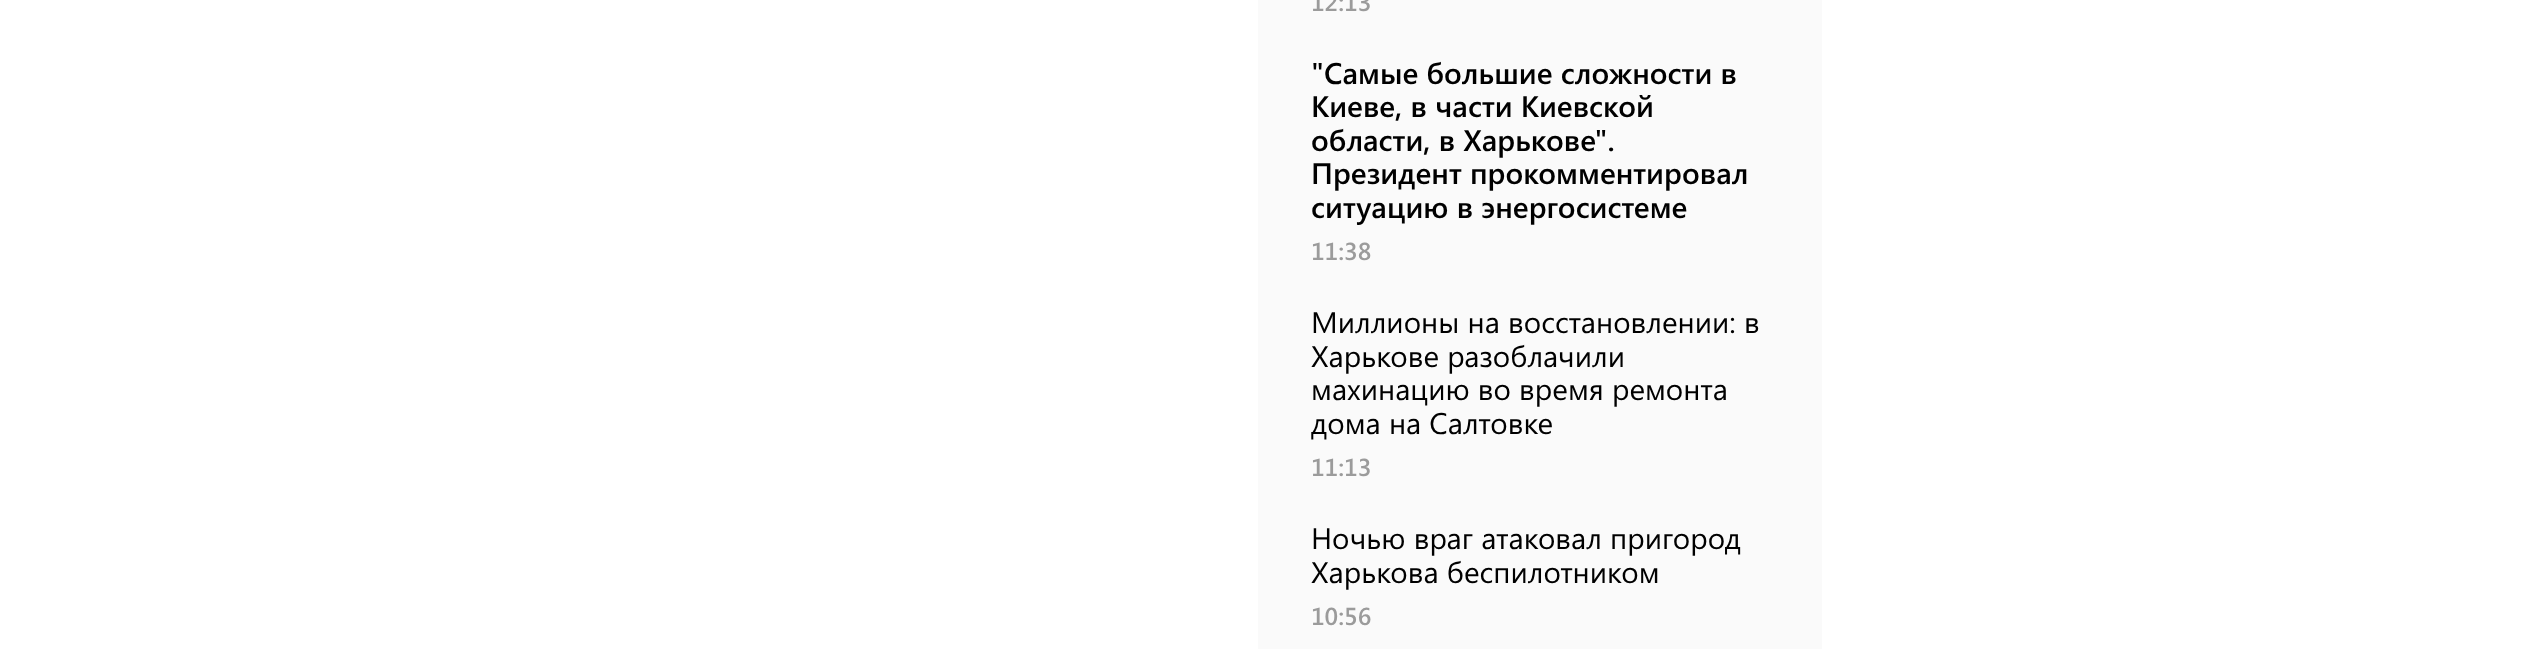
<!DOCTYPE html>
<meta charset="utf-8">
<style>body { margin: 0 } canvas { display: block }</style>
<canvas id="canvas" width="2547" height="649"></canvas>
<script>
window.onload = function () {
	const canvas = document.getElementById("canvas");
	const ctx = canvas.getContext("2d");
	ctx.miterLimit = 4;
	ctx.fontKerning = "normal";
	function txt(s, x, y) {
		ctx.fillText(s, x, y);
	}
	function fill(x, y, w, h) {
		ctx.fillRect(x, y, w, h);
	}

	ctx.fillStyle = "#FFFFFF";
	fill(0, 0, 2547, 649);
	ctx.fillStyle = "#FAFAFA";
	fill(1258, 0, 564, 649);
	ctx.font = "600 24.5px Segoe UI";
	ctx.fillStyle = "#9B9B9B";
	txt("12:13", 1311, 11);
	ctx.font = "600 29.75px Segoe UI";
	ctx.fillStyle = "#000000";
	txt("\"Самые большие сложности в", 1311, 84);
	txt("Киеве, в части Киевской", 1311, 117);
	txt("области, в Харькове\".", 1311, 151);
	txt("Президент прокомментировал", 1311, 184);
	txt("ситуацию в энергосистеме", 1311, 218);
	ctx.font = "600 24.5px Segoe UI";
	ctx.fillStyle = "#9B9B9B";
	txt("11:38", 1311, 260);
	ctx.font = "29.75px Segoe UI";
	ctx.fillStyle = "#000000";
	txt("Миллионы на восстановлении: в", 1311, 333);
	txt("Харькове разоблачили", 1311, 367);
	txt("махинацию во время ремонта", 1311, 400);
	txt("дома на Салтовке", 1311, 434);
	ctx.font = "600 24.5px Segoe UI";
	ctx.fillStyle = "#9B9B9B";
	txt("11:13", 1311, 476);
	ctx.font = "29.75px Segoe UI";
	ctx.fillStyle = "#000000";
	txt("Ночью враг атаковал пригород", 1311, 549);
	txt("Харькова беспилотником", 1311, 583);
	ctx.font = "600 24.5px Segoe UI";
	ctx.fillStyle = "#9B9B9B";
	txt("10:56", 1311, 625);
};
</script>
